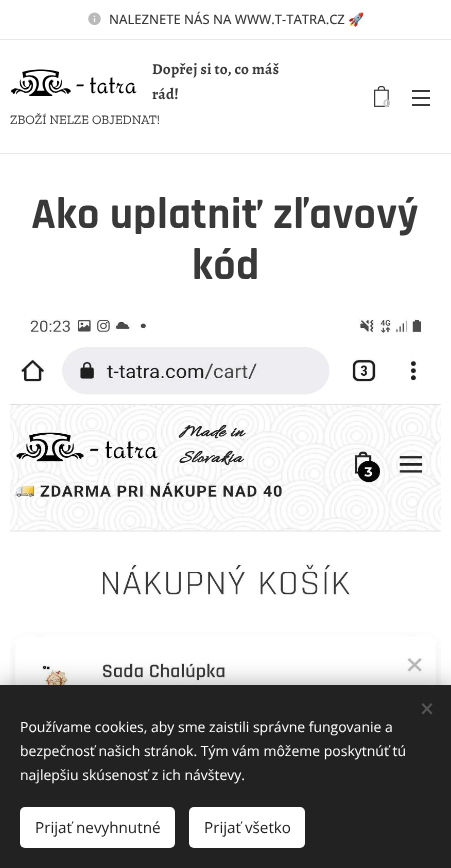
<!DOCTYPE html>
<meta charset="utf-8">
<style>body { margin: 0 } canvas { display: block }</style>
<canvas id="canvas" width="451" height="868"></canvas>
<img id="img1" src="img_01.png" hidden>
<img id="img2" src="img_02.png" hidden>
<img id="img3" src="img_03.png" hidden>
<img id="img4" src="img_04.png" hidden>
<script>
window.onload = function () {
	const canvas = document.getElementById("canvas");
	const ctx = canvas.getContext("2d");
	ctx.miterLimit = 4;
	ctx.fontKerning = "normal";
	function txt(s, x, y) {
		ctx.fillText(s, x, y);
	}
	function fill(x, y, w, h) {
		ctx.fillRect(x, y, w, h);
	}
	function round(x, y, w, h, r) {
		ctx.beginPath();
		ctx.roundRect(x, y, w, h, r);
		ctx.fill();
	}
	function img(id, x, y, w, h) {
		ctx.drawImage(document.getElementById(id), x, y, w, h);
	}

	ctx.fillStyle = "#FFFFFF";
	fill(0, 0, 451, 868);
	img("img1", 88, 12, 13, 13);
	ctx.fillStyle = "#E8E8E8";
	fill(0, 39, 451, 1);
	img("img2", 11, 69, 126, 27);
	img("img3", 374, 85, 15, 22);
	ctx.fillStyle = "#393939";
	fill(412, 97, 18, 2);
	fill(412, 90, 18, 2);
	fill(412, 104, 18, 2);
	ctx.fillStyle = "#E8E8E8";
	fill(0, 153, 451, 1);
	img("img4", 10, 319, 431, 366);
	ctx.fillStyle = "rgba(0, 0, 0, 0.33)";
	ctx.filter = "blur(12.5px)";
	ctx.beginPath();
	ctx.rect(0, 685, 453, 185);
	ctx.fill();
	ctx.filter = "none";
	ctx.fillStyle = "#222222";
	fill(0, 685, 451, 183);
	ctx.fillStyle = "#555555";
	ctx.beginPath();
	ctx.moveTo(421.5, 713);
	ctx.lineTo(431, 703);
	ctx.lineTo(432.5, 704.5);
	ctx.lineTo(423, 714.5);
	ctx.closePath();
	ctx.fill();
	ctx.beginPath();
	ctx.moveTo(423, 703);
	ctx.lineTo(432.5, 713);
	ctx.lineTo(431, 714.5);
	ctx.lineTo(421.5, 704.5);
	ctx.closePath();
	ctx.fill();
	ctx.fillStyle = "#FFFFFF";
	round(20, 807, 155, 41, 5);
	round(189, 807, 116, 41, 5);
	ctx.font = "500 13px Open Sans";
	ctx.fillStyle = "#393939";
	txt("NALEZNETE NÁS NA WWW.T-TATRA.CZ", 109, 24);
	ctx.font = "13px Noto Color Emoji";
	txt("🚀", 348, 24);
	ctx.letterSpacing = "0.25px";
	ctx.font = "bold 15.25px Alegreya";
	txt("Dopřej si to, co máš", 152, 74);
	txt("rád!", 152, 99);
	ctx.letterSpacing = "0px";
	ctx.font = "13px Zilla Slab";
	txt("ZBOŽÍ NELZE OBJEDNAT!", 10, 124);
	ctx.font = "bold 11px Montserrat";
	ctx.fillStyle = "#CBCBCB";
	txt("0", 383, 107);
	ctx.letterSpacing = "0.4px";
	ctx.font = "bold 44px Rajdhani";
	ctx.fillStyle = "#393939";
	txt("Ako uplatniť zľavový", 31, 228);
	txt("kód", 192, 279);
	ctx.letterSpacing = "0px";
	ctx.font = "14px Open Sans";
	ctx.fillStyle = "#FFFFFF";
	txt("Používame cookies, aby sme zaistili správne fungovanie a", 20, 732);
	txt("bezpečnosť našich stránok. Tým vám môžeme poskytnúť tú", 20, 756);
	txt("najlepšiu skúsenosť z ich návštevy.", 20, 780);
	ctx.font = "15.25px Open Sans";
	ctx.fillStyle = "#222222";
	txt("Prijať nevyhnutné", 35, 833);
	txt("Prijať všetko", 204, 833);
};
</script>
